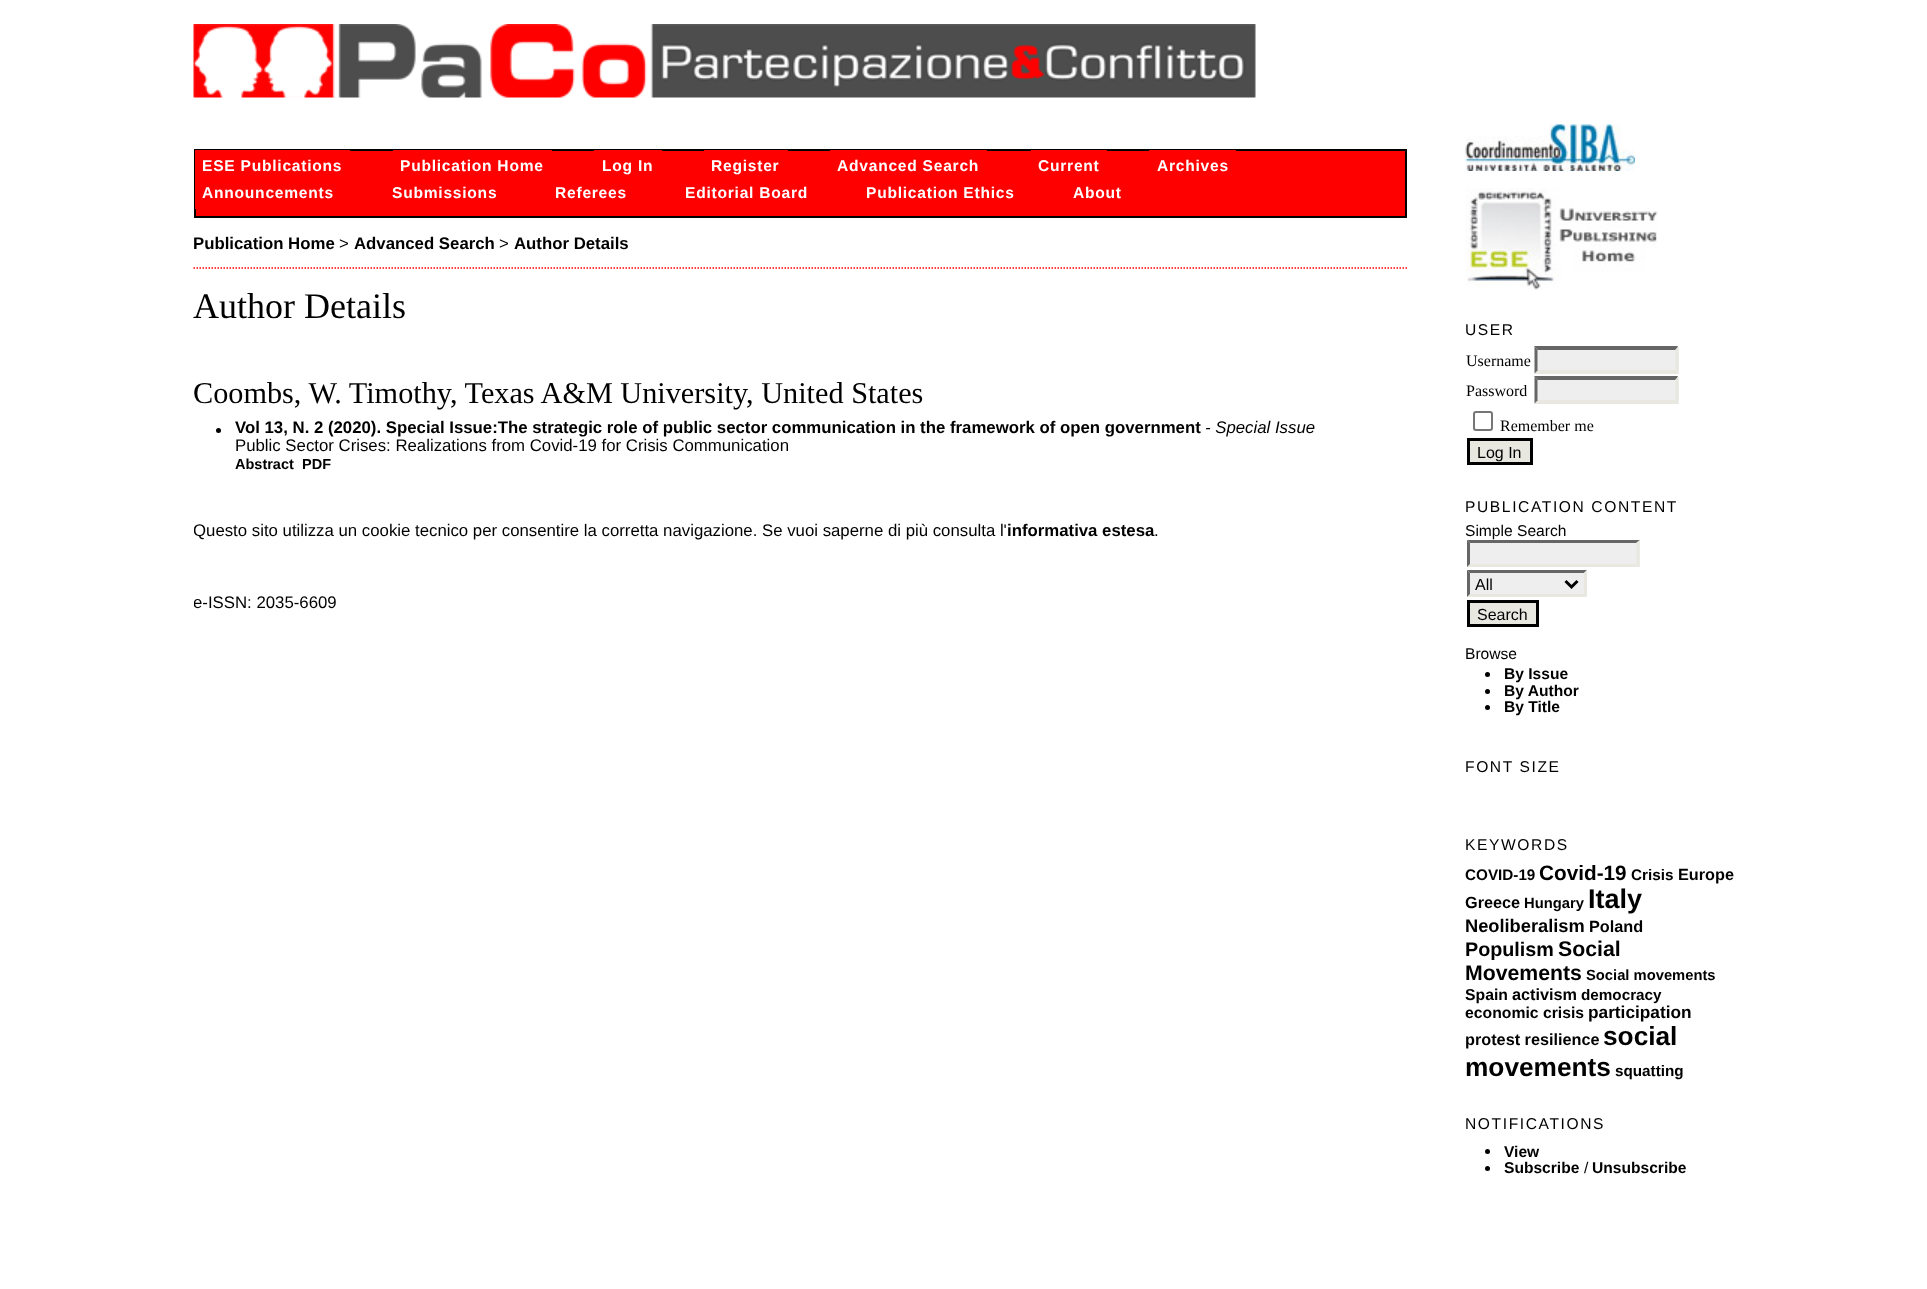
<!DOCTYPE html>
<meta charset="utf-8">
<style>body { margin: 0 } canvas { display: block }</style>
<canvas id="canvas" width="1927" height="1289"></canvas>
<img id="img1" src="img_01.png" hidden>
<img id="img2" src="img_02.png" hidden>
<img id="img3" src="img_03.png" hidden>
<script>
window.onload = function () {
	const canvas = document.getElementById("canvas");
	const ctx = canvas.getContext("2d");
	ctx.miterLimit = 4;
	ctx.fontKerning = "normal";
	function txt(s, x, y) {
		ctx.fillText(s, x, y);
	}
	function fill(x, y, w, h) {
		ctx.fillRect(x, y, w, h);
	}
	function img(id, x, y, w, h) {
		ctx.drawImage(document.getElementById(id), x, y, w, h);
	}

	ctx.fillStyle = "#FFFFFF";
	fill(0, 0, 1927, 1289);
	img("img1", 193, 24, 1063, 74);
	ctx.fillStyle = "#FF0000";
	ctx.beginPath();
	ctx.rect(195, 150, 1211, 67);
	ctx.fill();
	ctx.strokeStyle = "#000000";
	ctx.lineWidth = 2;
	ctx.stroke();
	fill(195, 150, 155, 32);
	fill(393, 150, 159, 1);
	fill(594, 150, 68, 1);
	fill(704, 150, 84, 1);
	fill(830, 150, 157, 1);
	fill(1031, 150, 76, 1);
	fill(1149, 150, 87, 1);
	fill(195, 182, 1, 27);
	ctx.beginPath();
	ctx.moveTo(193.5, 268);
	ctx.lineTo(1407, 268);
	ctx.strokeStyle = "#FF0000";
	ctx.lineWidth = 1.5;
	ctx.setLineDash([1.5, 1.5]);
	ctx.stroke();
	ctx.fillStyle = "#000000";
	ctx.beginPath();
	ctx.arc(218.5, 430.5, 2.5, 0, Math.PI * 2);
	ctx.fill();
	img("img2", 1465, 124, 170, 47);
	img("img3", 1465, 188, 193, 102);
	ctx.fillStyle = "#EEEEEE";
	fill(1535, 347, 144, 27);
	ctx.fillStyle = "#666666";
	ctx.beginPath();
	ctx.moveTo(1534, 346);
	ctx.lineTo(1678, 346);
	ctx.lineTo(1676, 350);
	ctx.lineTo(1538, 350);
	ctx.closePath();
	ctx.fill();
	ctx.fillStyle = "#E8E8E1";
	ctx.beginPath();
	ctx.moveTo(1678.5, 346.5);
	ctx.lineTo(1678.5, 373.5);
	ctx.lineTo(1675.5, 370.5);
	ctx.lineTo(1675.5, 349.5);
	ctx.closePath();
	ctx.fill();
	ctx.beginPath();
	ctx.moveTo(1678, 374);
	ctx.lineTo(1534, 374);
	ctx.lineTo(1538, 370);
	ctx.lineTo(1676, 370);
	ctx.closePath();
	ctx.fill();
	ctx.fillStyle = "#666666";
	ctx.beginPath();
	ctx.moveTo(1534.5, 373.5);
	ctx.lineTo(1534.5, 346.5);
	ctx.lineTo(1537.5, 349.5);
	ctx.lineTo(1537.5, 370.5);
	ctx.closePath();
	ctx.fill();
	ctx.fillStyle = "#EEEEEE";
	fill(1535, 377, 144, 27);
	ctx.fillStyle = "#666666";
	ctx.beginPath();
	ctx.moveTo(1534, 376);
	ctx.lineTo(1678, 376);
	ctx.lineTo(1676, 380);
	ctx.lineTo(1538, 380);
	ctx.closePath();
	ctx.fill();
	ctx.fillStyle = "#E8E8E1";
	ctx.beginPath();
	ctx.moveTo(1678.5, 376.5);
	ctx.lineTo(1678.5, 403.5);
	ctx.lineTo(1675.5, 400.5);
	ctx.lineTo(1675.5, 379.5);
	ctx.closePath();
	ctx.fill();
	ctx.beginPath();
	ctx.moveTo(1678, 404);
	ctx.lineTo(1534, 404);
	ctx.lineTo(1538, 400);
	ctx.lineTo(1676, 400);
	ctx.closePath();
	ctx.fill();
	ctx.fillStyle = "#666666";
	ctx.beginPath();
	ctx.moveTo(1534.5, 403.5);
	ctx.lineTo(1534.5, 376.5);
	ctx.lineTo(1537.5, 379.5);
	ctx.lineTo(1537.5, 400.5);
	ctx.closePath();
	ctx.fill();
	ctx.beginPath();
	ctx.roundRect(1474, 412, 18, 18, 2);
	ctx.strokeStyle = "#767676";
	ctx.lineWidth = 2;
	ctx.setLineDash([]);
	ctx.stroke();
	ctx.fillStyle = "#E8E8E1";
	ctx.beginPath();
	ctx.rect(1468.5, 439.5, 63, 24);
	ctx.fill();
	ctx.strokeStyle = "#000000";
	ctx.lineWidth = 3;
	ctx.stroke();
	ctx.fillStyle = "#EEEEEE";
	fill(1467, 540, 173, 27);
	ctx.fillStyle = "#666666";
	ctx.beginPath();
	ctx.moveTo(1467, 540);
	ctx.lineTo(1640, 540);
	ctx.lineTo(1636, 543);
	ctx.lineTo(1470, 543);
	ctx.closePath();
	ctx.fill();
	ctx.fillStyle = "#E8E8E1";
	ctx.beginPath();
	ctx.moveTo(1639.5, 540);
	ctx.lineTo(1639.5, 567);
	ctx.lineTo(1636.5, 564);
	ctx.lineTo(1636.5, 543);
	ctx.closePath();
	ctx.fill();
	ctx.beginPath();
	ctx.moveTo(1640, 567);
	ctx.lineTo(1467, 567);
	ctx.lineTo(1470, 564);
	ctx.lineTo(1636, 564);
	ctx.closePath();
	ctx.fill();
	ctx.fillStyle = "#666666";
	ctx.beginPath();
	ctx.moveTo(1467, 567);
	ctx.lineTo(1467, 540);
	ctx.lineTo(1470, 543);
	ctx.lineTo(1470, 564);
	ctx.closePath();
	ctx.fill();
	ctx.fillStyle = "#EEEEEE";
	fill(1467, 570, 120, 27);
	ctx.fillStyle = "#666666";
	ctx.beginPath();
	ctx.moveTo(1467, 570);
	ctx.lineTo(1587, 570);
	ctx.lineTo(1584, 573);
	ctx.lineTo(1470, 573);
	ctx.closePath();
	ctx.fill();
	ctx.fillStyle = "#E8E8E1";
	ctx.beginPath();
	ctx.moveTo(1587, 570);
	ctx.lineTo(1587, 597);
	ctx.lineTo(1584, 594);
	ctx.lineTo(1584, 573);
	ctx.closePath();
	ctx.fill();
	ctx.beginPath();
	ctx.moveTo(1587, 597);
	ctx.lineTo(1467, 597);
	ctx.lineTo(1470, 594);
	ctx.lineTo(1584, 594);
	ctx.closePath();
	ctx.fill();
	ctx.fillStyle = "#666666";
	ctx.beginPath();
	ctx.moveTo(1467, 597);
	ctx.lineTo(1467, 570);
	ctx.lineTo(1470, 573);
	ctx.lineTo(1470, 594);
	ctx.closePath();
	ctx.fill();
	ctx.beginPath();
	ctx.moveTo(1565.5, 581);
	ctx.lineTo(1571.5, 587);
	ctx.lineTo(1577.5, 581);
	ctx.stroke();
	ctx.fillStyle = "#E8E8E1";
	ctx.beginPath();
	ctx.rect(1468.5, 601.5, 69, 24);
	ctx.fill();
	ctx.stroke();
	ctx.fillStyle = "#000000";
	ctx.beginPath();
	ctx.arc(1487.5, 674.5, 2.5, 0, Math.PI * 2);
	ctx.fill();
	ctx.beginPath();
	ctx.arc(1487.5, 691.5, 2.5, 0, Math.PI * 2);
	ctx.fill();
	ctx.beginPath();
	ctx.arc(1487.5, 707.5, 2.5, 0, Math.PI * 2);
	ctx.fill();
	ctx.beginPath();
	ctx.arc(1487.5, 1151.5, 2.5, 0, Math.PI * 2);
	ctx.fill();
	ctx.beginPath();
	ctx.arc(1487.5, 1168.5, 2.5, 0, Math.PI * 2);
	ctx.fill();
	ctx.letterSpacing = "0.75px";
	ctx.font = "bold 15.6px Liberation Sans";
	ctx.fillStyle = "#FFFFFF";
	txt("ESE Publications", 202, 171);
	txt("Publication Home", 400, 171);
	txt("Log In", 602, 171);
	txt("Register", 711, 171);
	txt("Advanced Search", 837, 171);
	txt("Current", 1038, 171);
	txt("Archives", 1157, 171);
	txt("Announcements", 202, 198);
	txt("Submissions", 392, 198);
	txt("Referees", 555, 198);
	txt("Editorial Board", 685, 198);
	txt("Publication Ethics", 866, 198);
	txt("About", 1073, 198);
	ctx.save();
	ctx.beginPath();
	ctx.rect(194, 110, 1213, 549);
	ctx.clip();
	ctx.letterSpacing = "0px";
	ctx.font = "bold 16.8px Liberation Sans";
	ctx.fillStyle = "#000000";
	txt("Publication Home", 193, 249);
	ctx.restore();
	ctx.letterSpacing = "0px";
	ctx.font = "16.8px Liberation Sans";
	ctx.fillStyle = "#000000";
	txt(">", 339, 249);
	ctx.font = "bold 16.8px Liberation Sans";
	txt("Advanced Search", 354, 249);
	ctx.font = "16.8px Liberation Sans";
	txt(">", 499, 249);
	ctx.font = "bold 16.8px Liberation Sans";
	txt("Author Details", 514, 249);
	ctx.font = "36px Liberation Serif";
	txt("Author Details", 193, 318);
	ctx.font = "30.25px Liberation Serif";
	txt("Coombs, W. Timothy, Texas A&M University, United States", 193, 403);
	ctx.font = "bold 16.8px Liberation Sans";
	txt("Vol 13, N. 2 (2020). Special Issue:The strategic role of public sector communication in the framework of open government", 235, 433);
	ctx.font = "italic 16.8px Liberation Sans";
	txt("- Special Issue", 1205, 433);
	ctx.font = "16.8px Liberation Sans";
	txt("Public Sector Crises: Realizations from Covid-19 for Crisis Communication", 235, 451);
	ctx.font = "bold 14.5px Liberation Sans";
	txt("Abstract", 235, 469);
	txt("PDF", 302, 469);
	ctx.save();
	ctx.beginPath();
	ctx.rect(194, 110, 1213, 549);
	ctx.clip();
	ctx.font = "16.8px Liberation Sans";
	txt("Questo sito utilizza un cookie tecnico per consentire la corretta navigazione. Se vuoi saperne di più consulta l'", 193, 536);
	ctx.restore();
	ctx.font = "bold 16.8px Liberation Sans";
	txt("informativa estesa", 1007, 536);
	ctx.font = "16.8px Liberation Sans";
	txt(".", 1154, 536);
	ctx.save();
	ctx.beginPath();
	ctx.rect(194, 110, 1213, 549);
	ctx.clip();
	txt("e-ISSN: 2035-6609", 193, 608);
	ctx.restore();
	ctx.letterSpacing = "1.6px";
	ctx.font = "15.6px Liberation Sans";
	txt("USER", 1465, 335);
	ctx.letterSpacing = "0px";
	ctx.font = "16px Liberation Serif";
	txt("Username", 1466, 366);
	txt("Password", 1466, 396);
	txt("Remember me", 1500, 431);
	ctx.font = "16px Liberation Sans";
	txt("Log In", 1477, 458);
	ctx.letterSpacing = "1.6px";
	ctx.font = "15.6px Liberation Sans";
	txt("PUBLICATION CONTENT", 1465, 512);
	ctx.letterSpacing = "0px";
	txt("Simple Search", 1465, 536);
	ctx.font = "16px Liberation Sans";
	txt("All", 1475, 590);
	txt("Search", 1477, 620);
	ctx.font = "15.6px Liberation Sans";
	txt("Browse", 1465, 659);
	ctx.font = "bold 15.6px Liberation Sans";
	txt("By Issue", 1504, 679);
	txt("By Author", 1504, 696);
	txt("By Title", 1504, 712);
	ctx.letterSpacing = "1.6px";
	ctx.font = "15.6px Liberation Sans";
	txt("FONT SIZE", 1465, 772);
	txt("KEYWORDS", 1465, 850);
	ctx.letterSpacing = "0px";
	ctx.font = "bold 15.25px Liberation Sans";
	txt("COVID-19", 1465, 880);
	ctx.font = "bold 20.75px Liberation Sans";
	txt("Covid-19", 1539, 880);
	ctx.font = "bold 15.25px Liberation Sans";
	txt("Crisis", 1631, 880);
	ctx.font = "bold 16.25px Liberation Sans";
	txt("Europe", 1678, 880);
	txt("Greece", 1465, 908);
	ctx.font = "bold 14.75px Liberation Sans";
	txt("Hungary", 1524, 908);
	ctx.font = "bold 27px Liberation Sans";
	txt("Italy", 1588, 908);
	ctx.font = "bold 18.25px Liberation Sans";
	txt("Neoliberalism", 1465, 932);
	ctx.font = "bold 16.25px Liberation Sans";
	txt("Poland", 1589, 932);
	ctx.font = "bold 19.75px Liberation Sans";
	txt("Populism", 1465, 956);
	ctx.font = "bold 21.25px Liberation Sans";
	txt("Social", 1558, 956);
	txt("Movements", 1465, 980);
	ctx.font = "bold 14.75px Liberation Sans";
	txt("Social movements", 1586, 980);
	ctx.font = "bold 15.75px Liberation Sans";
	txt("Spain", 1465, 1000);
	ctx.font = "bold 16.25px Liberation Sans";
	txt("activism", 1512, 1000);
	ctx.font = "bold 15.25px Liberation Sans";
	txt("democracy", 1581, 1000);
	ctx.font = "bold 15.75px Liberation Sans";
	txt("economic crisis", 1465, 1018);
	ctx.font = "bold 17.25px Liberation Sans";
	txt("participation", 1588, 1018);
	ctx.font = "bold 16.25px Liberation Sans";
	txt("protest resilience", 1465, 1045);
	ctx.font = "bold 26.25px Liberation Sans";
	txt("social", 1603, 1045);
	txt("movements", 1465, 1076);
	ctx.font = "bold 15.25px Liberation Sans";
	txt("squatting", 1615, 1076);
	ctx.letterSpacing = "1.6px";
	ctx.font = "15.6px Liberation Sans";
	txt("NOTIFICATIONS", 1465, 1129);
	ctx.letterSpacing = "0px";
	ctx.font = "bold 15.6px Liberation Sans";
	txt("View", 1504, 1157);
	txt("Subscribe", 1504, 1173);
	ctx.font = "15.6px Liberation Sans";
	txt("/", 1584, 1173);
	ctx.font = "bold 15.6px Liberation Sans";
	txt("Unsubscribe", 1592, 1173);
};
</script>
